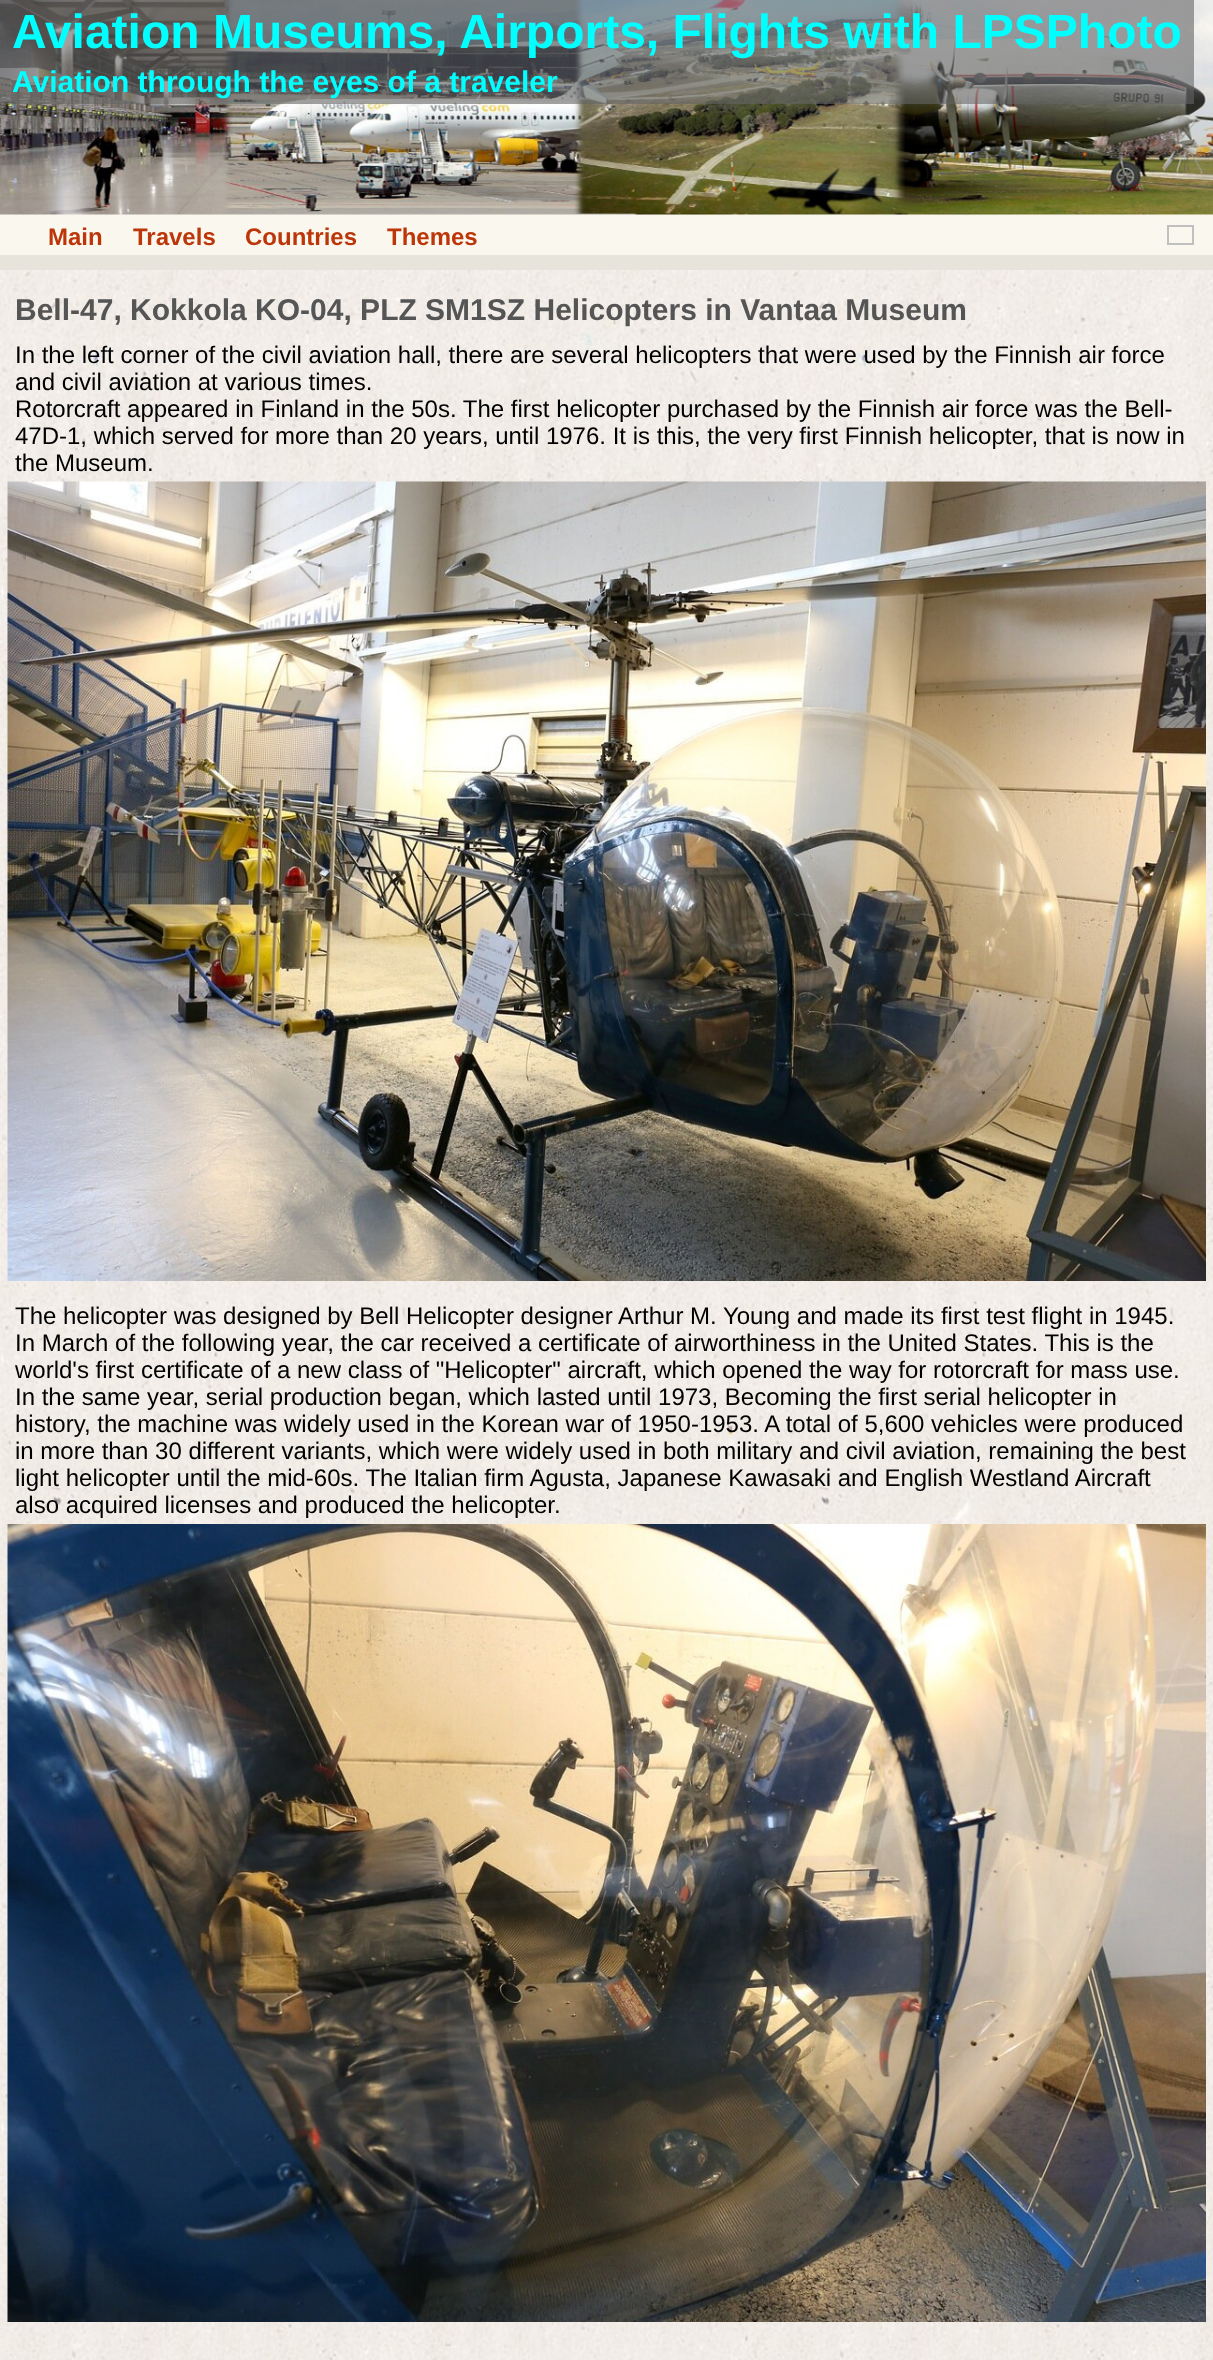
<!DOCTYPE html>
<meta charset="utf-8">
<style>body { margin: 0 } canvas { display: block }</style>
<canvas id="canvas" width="1213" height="2360"></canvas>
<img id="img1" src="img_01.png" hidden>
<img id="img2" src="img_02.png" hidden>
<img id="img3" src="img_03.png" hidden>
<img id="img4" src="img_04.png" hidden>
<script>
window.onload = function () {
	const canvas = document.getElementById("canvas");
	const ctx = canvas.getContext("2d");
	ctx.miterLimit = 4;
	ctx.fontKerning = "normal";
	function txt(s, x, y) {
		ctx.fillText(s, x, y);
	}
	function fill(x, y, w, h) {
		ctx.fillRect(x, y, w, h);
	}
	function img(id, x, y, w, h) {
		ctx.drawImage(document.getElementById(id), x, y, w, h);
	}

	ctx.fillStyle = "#E6E4DB";
	fill(0, 0, 1213, 2360);
	ctx.fillStyle = "#FAF8EE";
	fill(0, 214, 1213, 41);
	img("img1", 0, 0, 1213, 215);
	ctx.fillStyle = "rgba(100, 100, 100, 0.6)";
	fill(0, 0, 1194, 104);
	ctx.strokeStyle = "#C0C0C0";
	ctx.lineWidth = 2;
	ctx.strokeRect(1168, 226, 25, 18);
	img("img2", 0, 270, 1213, 2090);
	img("img3", 7, 481, 1199, 800);
	img("img4", 7, 1524, 1199, 798);
	ctx.font = "bold 48px Liberation Sans";
	ctx.fillStyle = "#00FFFF";
	txt("Aviation Museums, Airports, Flights with LPSPhoto", 12, 48);
	ctx.font = "bold 30px Liberation Sans";
	txt("Aviation through the eyes of a traveler", 12, 92);
	ctx.font = "bold 24px Liberation Sans";
	ctx.fillStyle = "#BC360A";
	txt("Main", 48, 245);
	txt("Travels", 133, 245);
	txt("Countries", 245, 245);
	txt("Themes", 387, 245);
	ctx.font = "bold 30px Liberation Sans";
	ctx.fillStyle = "#555555";
	txt("Bell-47, Kokkola KO-04, PLZ SM1SZ Helicopters in Vantaa Museum", 15, 320);
	ctx.font = "24px Liberation Sans";
	ctx.fillStyle = "#000000";
	txt("In the left corner of the civil aviation hall, there are several helicopters that were used by the Finnish air force", 15, 363);
	txt("and civil aviation at various times.", 15, 390);
	txt("Rotorcraft appeared in Finland in the 50s. The first helicopter purchased by the Finnish air force was the Bell-", 15, 417);
	txt("47D-1, which served for more than 20 years, until 1976. It is this, the very first Finnish helicopter, that is now in", 15, 444);
	txt("the Museum.", 15, 471);
	txt("The helicopter was designed by Bell Helicopter designer Arthur M. Young and made its first test flight in 1945.", 15, 1324);
	txt("In March of the following year, the car received a certificate of airworthiness in the United States. This is the", 15, 1351);
	txt("world's first certificate of a new class of \"Helicopter\" aircraft, which opened the way for rotorcraft for mass use.", 15, 1378);
	txt("In the same year, serial production began, which lasted until 1973, Becoming the first serial helicopter in", 15, 1405);
	txt("history, the machine was widely used in the Korean war of 1950-1953. A total of 5,600 vehicles were produced", 15, 1432);
	txt("in more than 30 different variants, which were widely used in both military and civil aviation, remaining the best", 15, 1459);
	txt("light helicopter until the mid-60s. The Italian firm Agusta, Japanese Kawasaki and English Westland Aircraft", 15, 1486);
	txt("also acquired licenses and produced the helicopter.", 15, 1513);
};
</script>
